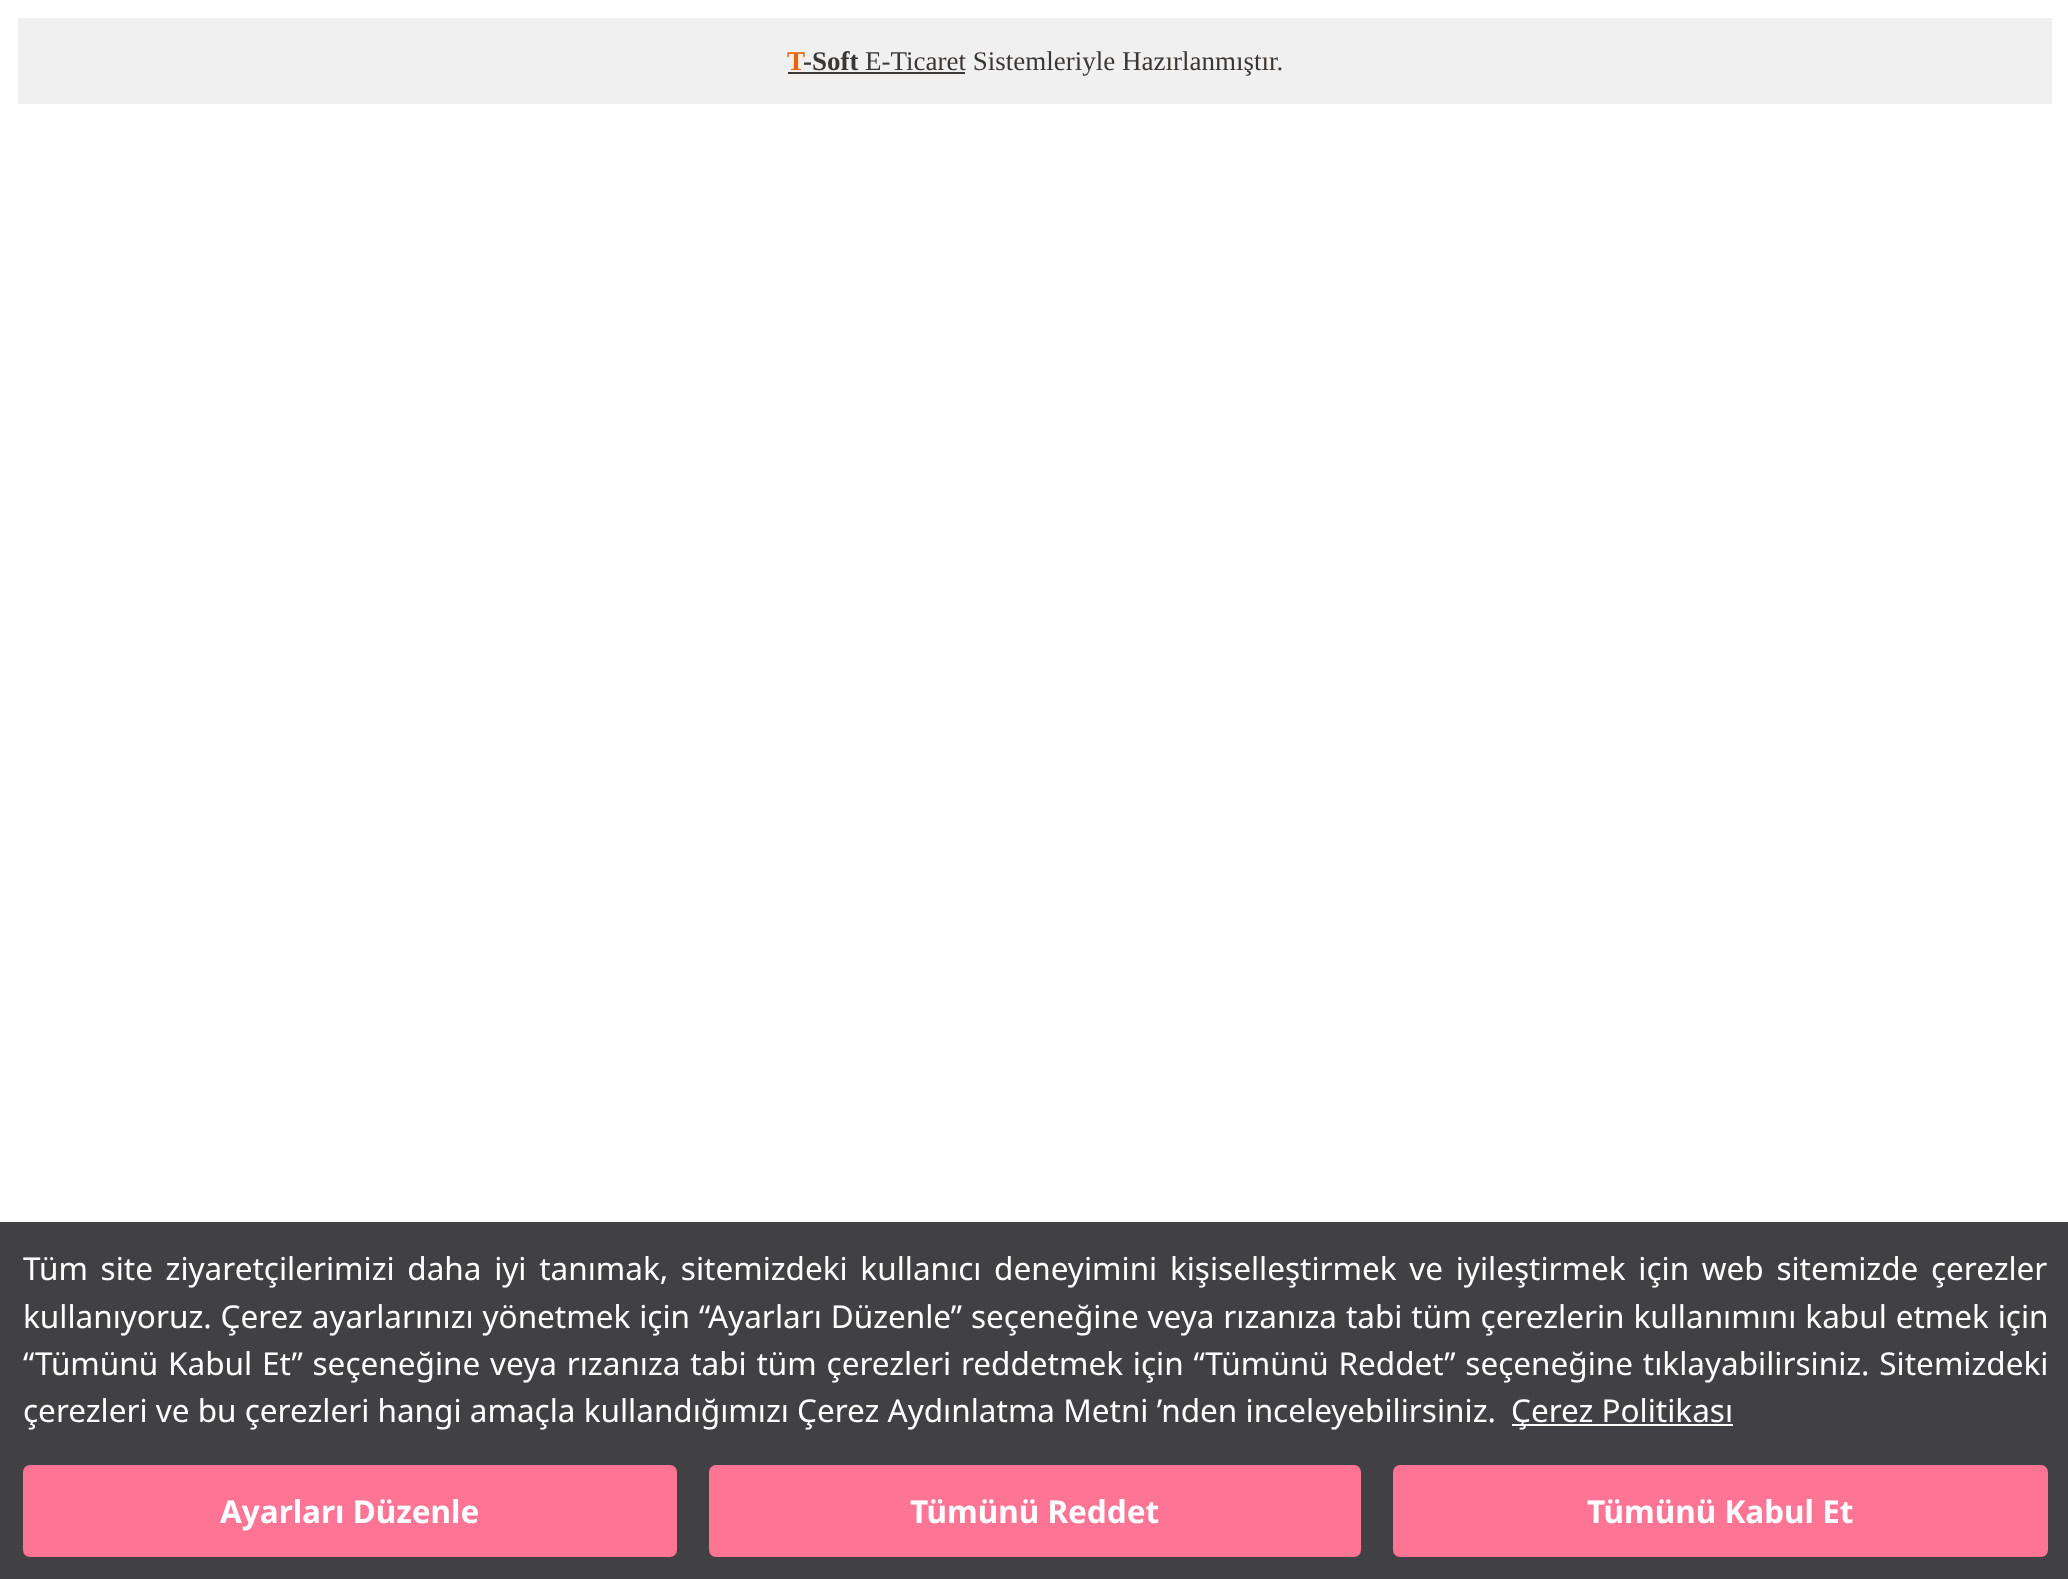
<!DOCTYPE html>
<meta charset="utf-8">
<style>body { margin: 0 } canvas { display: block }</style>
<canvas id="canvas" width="2068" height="1579"></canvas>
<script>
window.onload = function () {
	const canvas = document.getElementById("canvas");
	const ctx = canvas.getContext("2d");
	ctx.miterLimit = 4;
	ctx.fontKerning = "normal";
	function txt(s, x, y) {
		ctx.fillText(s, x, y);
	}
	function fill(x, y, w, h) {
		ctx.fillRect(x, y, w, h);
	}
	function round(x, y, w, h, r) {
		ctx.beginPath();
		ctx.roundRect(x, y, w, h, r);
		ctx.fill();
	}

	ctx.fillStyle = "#FFFFFF";
	fill(0, 0, 2068, 1579);
	ctx.fillStyle = "#F0F0F0";
	fill(18, 18, 2034, 86);
	ctx.fillStyle = "#3B3734";
	fill(788, 72, 177, 2);
	ctx.fillStyle = "#414042";
	fill(0, 1222, 2068, 357);
	ctx.fillStyle = "#FFFFFF";
	fill(1512, 1424, 221, 2);
	ctx.fillStyle = "#FE7494";
	round(23, 1465, 654, 92, 7);
	round(709, 1465, 652, 92, 7);
	round(1393, 1465, 655, 92, 7);
	ctx.font = "bold 27px Liberation Serif";
	ctx.fillStyle = "#EC6408";
	txt("T", 787, 70);
	ctx.fillStyle = "#3B3734";
	txt("-Soft", 803, 70);
	ctx.font = "27px Liberation Serif";
	txt("E-Ticaret Sistemleriyle Hazırlanmıştır.", 865, 70);
	ctx.wordSpacing = "4.5px";
	ctx.font = "31.5px Noto Sans";
	ctx.fillStyle = "#FFFFFF";
	txt("Tüm site ziyaretçilerimizi daha iyi tanımak, sitemizdeki kullanıcı deneyimini kişiselleştirmek ve iyileştirmek için web sitemizde çerezler", 23, 1280);
	ctx.wordSpacing = "0.7px";
	txt("kullanıyoruz. Çerez ayarlarınızı yönetmek için “Ayarları Düzenle” seçeneğine veya rızanıza tabi tüm çerezlerin kullanımını kabul etmek için", 23, 1328);
	ctx.wordSpacing = "1.6px";
	txt("“Tümünü Kabul Et” seçeneğine veya rızanıza tabi tüm çerezleri reddetmek için “Tümünü Reddet” seçeneğine tıklayabilirsiniz. Sitemizdeki", 23, 1375);
	ctx.wordSpacing = "0px";
	txt("çerezleri ve bu çerezleri hangi amaçla kullandığımızı Çerez Aydınlatma Metni ’nden inceleyebilirsiniz.", 23, 1422);
	txt("Çerez Politikası", 1511, 1422);
	ctx.font = "bold 31.5px Noto Sans";
	txt("Ayarları Düzenle", 220, 1523);
	txt("Tümünü Reddet", 910, 1523);
	txt("Tümünü Kabul Et", 1587, 1523);
};
</script>
